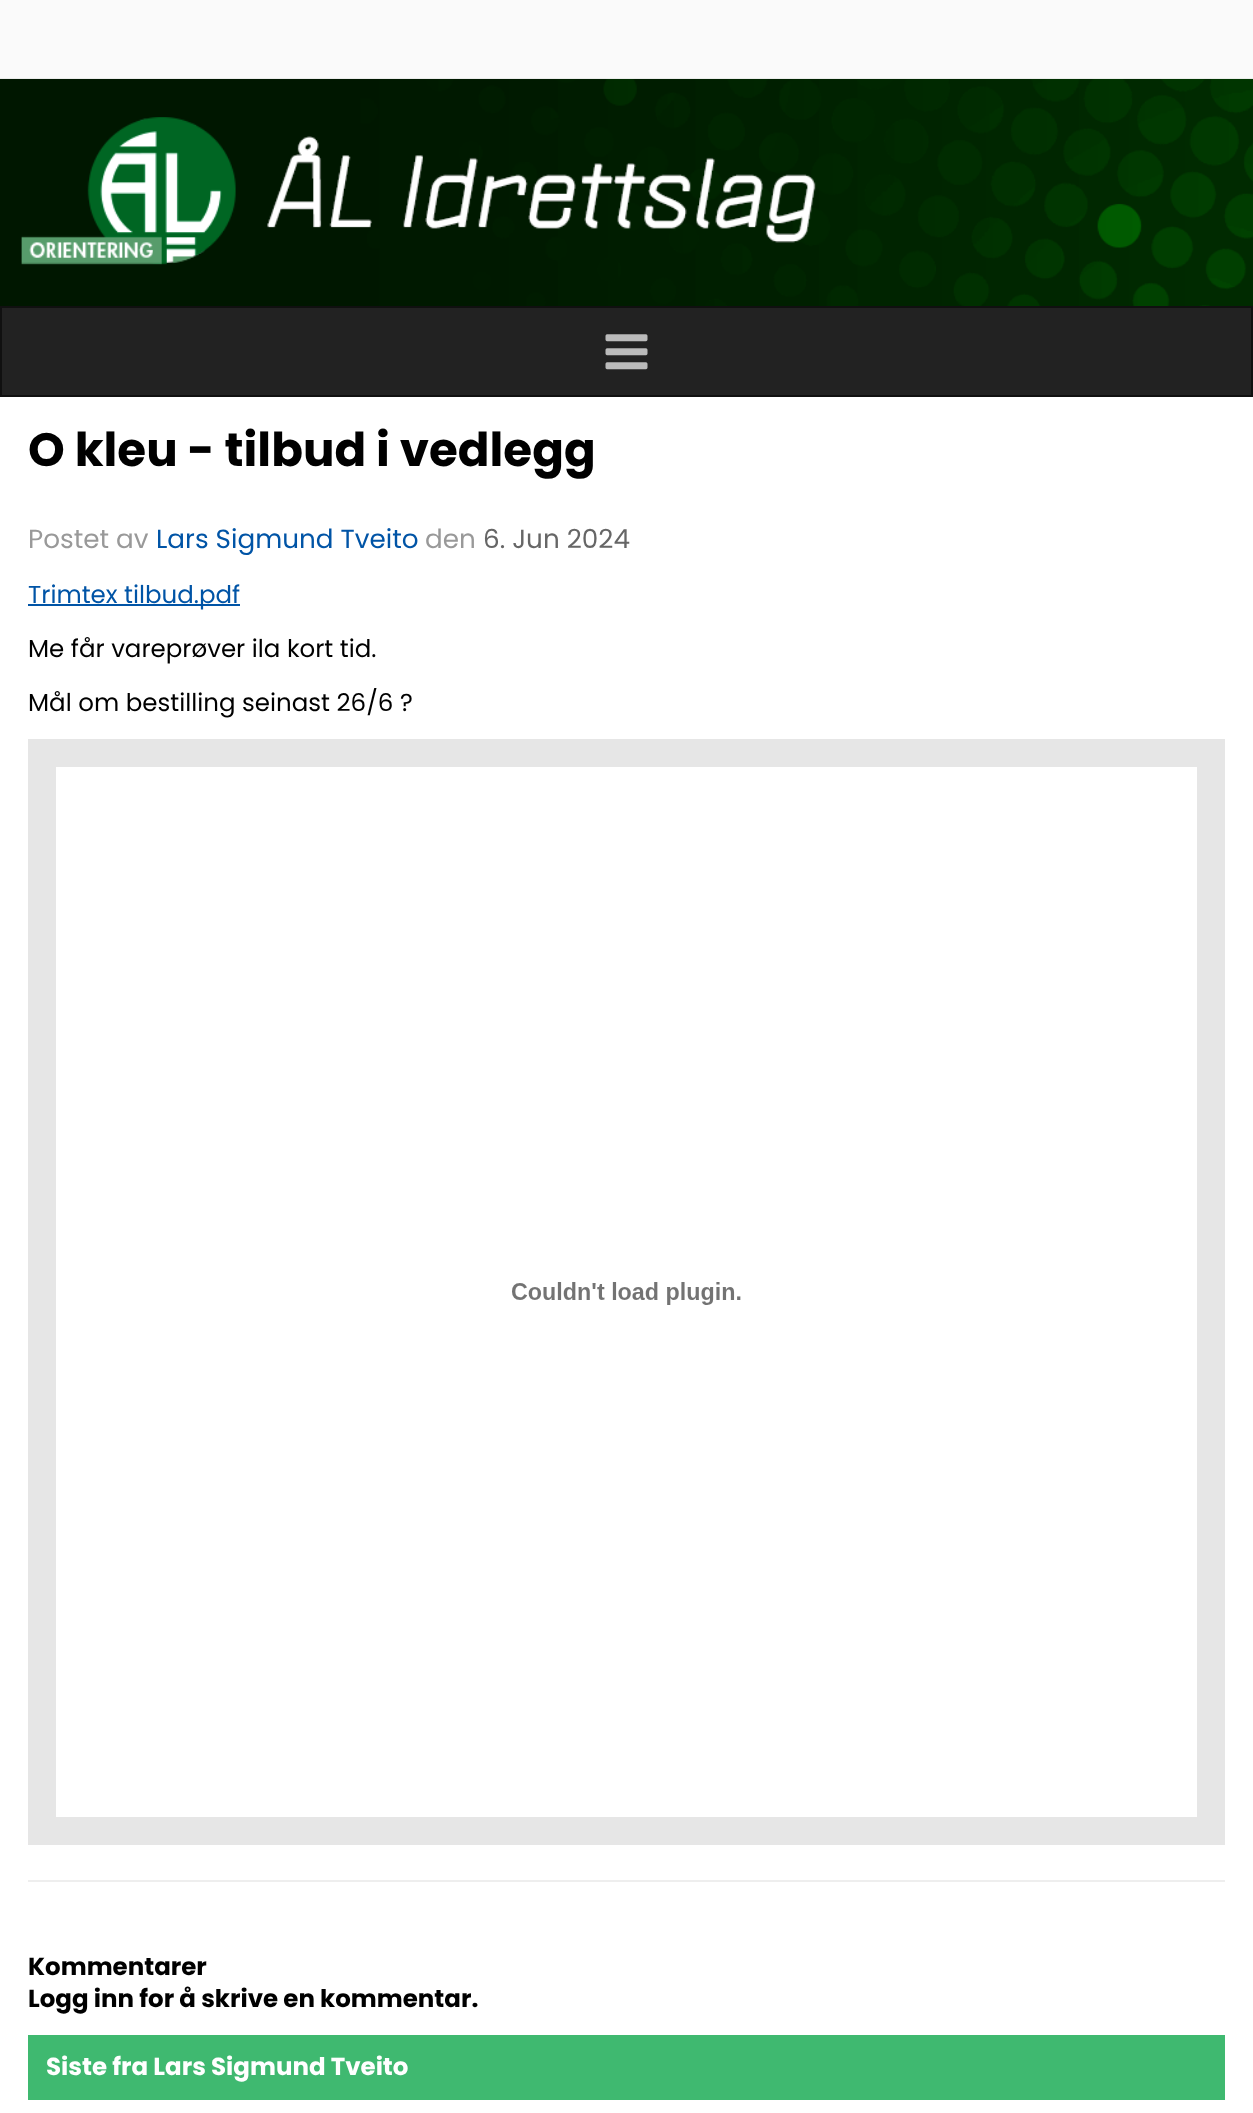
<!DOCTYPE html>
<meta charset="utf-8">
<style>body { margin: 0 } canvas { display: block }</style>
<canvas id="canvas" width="1253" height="2113"></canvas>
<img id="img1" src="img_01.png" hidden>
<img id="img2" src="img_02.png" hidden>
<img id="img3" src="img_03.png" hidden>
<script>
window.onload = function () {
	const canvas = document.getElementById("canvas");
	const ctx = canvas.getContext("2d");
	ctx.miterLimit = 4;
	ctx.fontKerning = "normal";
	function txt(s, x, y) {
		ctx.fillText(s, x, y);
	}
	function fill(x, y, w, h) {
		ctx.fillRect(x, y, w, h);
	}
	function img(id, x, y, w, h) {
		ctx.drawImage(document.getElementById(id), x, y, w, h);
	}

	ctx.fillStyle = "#FAFAFA";
	fill(0, 0, 1253, 2113);
	img("img1", 0, 78, 1253, 228);
	ctx.fillStyle = "#222222";
	ctx.beginPath();
	ctx.rect(1, 307, 1251, 89);
	ctx.fill();
	ctx.strokeStyle = "#101010";
	ctx.lineWidth = 2;
	ctx.stroke();
	img("img2", 605, 334, 43, 36);
	ctx.fillStyle = "#FFFFFF";
	fill(0, 397, 1253, 1716);
	ctx.fillStyle = "#0054A6";
	fill(28, 604, 212, 2);
	ctx.strokeStyle = "#E6E6E6";
	ctx.lineWidth = 28;
	ctx.strokeRect(42, 753, 1169, 1078);
	img("img3", 512, 1282, 229, 23);
	ctx.fillStyle = "#EEEEEE";
	fill(28, 1880, 1197, 2);
	ctx.fillStyle = "#3FB970";
	fill(28, 2035, 1197, 65);
	ctx.font = "bold 46.75px Poppins";
	ctx.fillStyle = "#000000";
	txt("O kleu - tilbud i vedlegg", 28, 466);
	ctx.font = "26.25px Poppins";
	ctx.fillStyle = "#999999";
	txt("Postet av", 28, 548);
	ctx.fillStyle = "#0054A6";
	txt("Lars Sigmund Tveito", 156, 548);
	ctx.fillStyle = "#999999";
	txt("den", 425, 548);
	ctx.fillStyle = "#666666";
	txt("6. Jun 2024", 483, 548);
	ctx.font = "24.5px Poppins";
	ctx.fillStyle = "#0054A6";
	txt("Trimtex tilbud.pdf", 28, 603);
	ctx.fillStyle = "#000000";
	txt("Me får vareprøver ila kort tid.", 28, 657);
	txt("Mål om bestilling seinast 26/6 ?", 28, 711);
	ctx.font = "bold 24.5px Poppins";
	txt("Kommentarer", 28, 1975);
	txt("Logg inn for å skrive en kommentar.", 28, 2007);
	ctx.fillStyle = "#FFFFFF";
	txt("Siste fra Lars Sigmund Tveito", 46, 2075);
};
</script>
